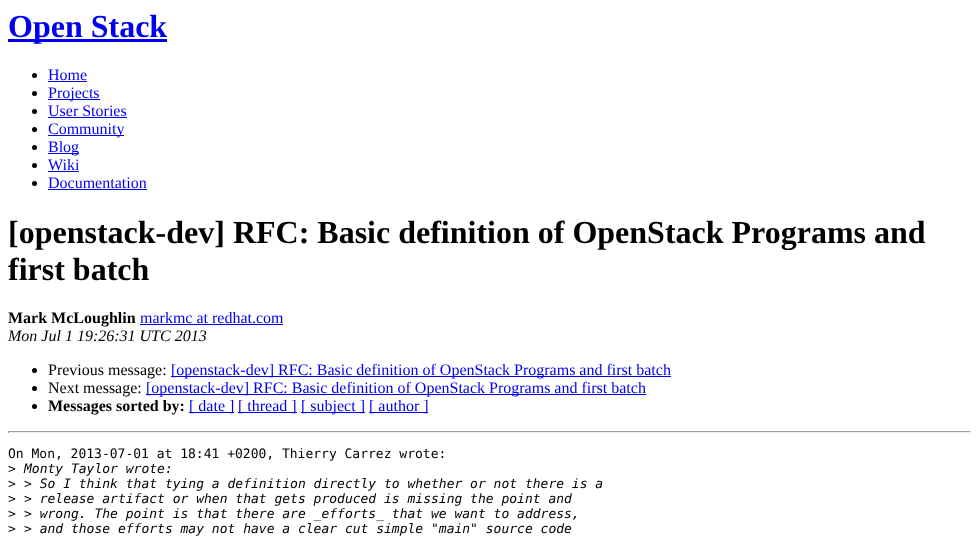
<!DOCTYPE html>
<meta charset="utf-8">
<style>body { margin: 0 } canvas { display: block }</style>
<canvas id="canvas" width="979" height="540"></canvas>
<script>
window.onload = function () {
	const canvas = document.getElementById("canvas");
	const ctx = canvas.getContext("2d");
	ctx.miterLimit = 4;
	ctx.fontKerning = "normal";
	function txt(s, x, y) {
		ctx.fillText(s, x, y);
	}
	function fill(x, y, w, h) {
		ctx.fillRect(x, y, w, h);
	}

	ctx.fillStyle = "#FFFFFF";
	fill(0, 0, 979, 540);
	ctx.fillStyle = "#0000EE";
	fill(8, 39, 159, 3);
	ctx.fillStyle = "#000000";
	ctx.beginPath();
	ctx.arc(34.5, 75.5, 2.5, 0, Math.PI * 2);
	ctx.fill();
	ctx.fillStyle = "#0000EE";
	fill(48, 81, 39, 1);
	ctx.fillStyle = "#000000";
	ctx.beginPath();
	ctx.arc(34.5, 93.5, 2.5, 0, Math.PI * 2);
	ctx.fill();
	ctx.fillStyle = "#0000EE";
	fill(48, 99, 52, 1);
	ctx.fillStyle = "#000000";
	ctx.beginPath();
	ctx.arc(34.5, 111.5, 2.5, 0, Math.PI * 2);
	ctx.fill();
	ctx.fillStyle = "#0000EE";
	fill(48, 117, 79, 1);
	ctx.fillStyle = "#000000";
	ctx.beginPath();
	ctx.arc(34.5, 129.5, 2.5, 0, Math.PI * 2);
	ctx.fill();
	ctx.fillStyle = "#0000EE";
	fill(48, 135, 76, 1);
	ctx.fillStyle = "#000000";
	ctx.beginPath();
	ctx.arc(34.5, 147.5, 2.5, 0, Math.PI * 2);
	ctx.fill();
	ctx.fillStyle = "#0000EE";
	fill(48, 153, 31, 1);
	ctx.fillStyle = "#000000";
	ctx.beginPath();
	ctx.arc(34.5, 165.5, 2.5, 0, Math.PI * 2);
	ctx.fill();
	ctx.fillStyle = "#0000EE";
	fill(48, 171, 31, 1);
	ctx.fillStyle = "#000000";
	ctx.beginPath();
	ctx.arc(34.5, 183.5, 2.5, 0, Math.PI * 2);
	ctx.fill();
	ctx.fillStyle = "#0000EE";
	fill(48, 189, 99, 1);
	fill(140, 324, 143, 1);
	ctx.fillStyle = "#000000";
	ctx.beginPath();
	ctx.arc(34.5, 370.5, 2.5, 0, Math.PI * 2);
	ctx.fill();
	ctx.fillStyle = "#0000EE";
	fill(171, 376, 500, 1);
	ctx.fillStyle = "#000000";
	ctx.beginPath();
	ctx.arc(34.5, 388.5, 2.5, 0, Math.PI * 2);
	ctx.fill();
	ctx.fillStyle = "#0000EE";
	fill(146, 394, 500, 1);
	ctx.fillStyle = "#000000";
	ctx.beginPath();
	ctx.arc(34.5, 406.5, 2.5, 0, Math.PI * 2);
	ctx.fill();
	ctx.fillStyle = "#0000EE";
	fill(189, 412, 45, 1);
	fill(238, 412, 59, 1);
	fill(301, 412, 64, 1);
	fill(369, 412, 59, 1);
	ctx.fillStyle = "#9F9F9F";
	fill(8, 431, 963, 1);
	ctx.fillStyle = "#EEEEEE";
	fill(970, 431, 1, 2);
	fill(8, 432, 963, 1);
	ctx.fillStyle = "#9F9F9F";
	fill(8, 431, 1, 2);
	ctx.font = "bold 32px Liberation Serif";
	ctx.fillStyle = "#0000EE";
	txt("Open Stack", 8, 37);
	ctx.font = "16px Liberation Serif";
	txt("Home", 48, 80);
	txt("Projects", 48, 98);
	txt("User Stories", 48, 116);
	txt("Community", 48, 134);
	txt("Blog", 48, 152);
	txt("Wiki", 48, 170);
	txt("Documentation", 48, 188);
	ctx.font = "bold 32px Liberation Serif";
	ctx.fillStyle = "#000000";
	txt("[openstack-dev] RFC: Basic definition of OpenStack Programs and", 8, 243);
	txt("first batch", 8, 280);
	ctx.font = "bold 16px Liberation Serif";
	txt("Mark McLoughlin", 8, 323);
	ctx.font = "16px Liberation Serif";
	ctx.fillStyle = "#0000EE";
	txt("markmc at redhat.com", 140, 323);
	ctx.font = "italic 16px Liberation Serif";
	ctx.fillStyle = "#000000";
	txt("Mon Jul 1 19:26:31 UTC 2013", 8, 341);
	ctx.font = "16px Liberation Serif";
	txt("Previous message:", 48, 375);
	ctx.fillStyle = "#0000EE";
	txt("[openstack-dev] RFC: Basic definition of OpenStack Programs and first batch", 171, 375);
	ctx.fillStyle = "#000000";
	txt("Next message:", 48, 393);
	ctx.fillStyle = "#0000EE";
	txt("[openstack-dev] RFC: Basic definition of OpenStack Programs and first batch", 146, 393);
	ctx.font = "bold 16px Liberation Serif";
	ctx.fillStyle = "#000000";
	txt("Messages sorted by:", 48, 411);
	ctx.font = "16px Liberation Serif";
	ctx.fillStyle = "#0000EE";
	txt("[ date ]", 189, 411);
	txt("[ thread ]", 238, 411);
	txt("[ subject ]", 301, 411);
	txt("[ author ]", 369, 411);
	ctx.font = "13px DejaVu Sans Mono";
	ctx.fillStyle = "#000000";
	txt("On Mon, 2013-07-01 at 18:41 +0200, Thierry Carrez wrote:", 8, 458);
	txt(">", 8, 473);
	ctx.font = "italic 13px DejaVu Sans Mono";
	txt("Monty Taylor wrote:", 24, 473);
	ctx.font = "13px DejaVu Sans Mono";
	txt(">", 8, 488);
	ctx.font = "italic 13px DejaVu Sans Mono";
	txt("> So I think that tying a definition directly to whether or not there is a", 24, 488);
	ctx.font = "13px DejaVu Sans Mono";
	txt(">", 8, 503);
	ctx.font = "italic 13px DejaVu Sans Mono";
	txt("> release artifact or when that gets produced is missing the point and", 24, 503);
	ctx.font = "13px DejaVu Sans Mono";
	txt(">", 8, 518);
	ctx.font = "italic 13px DejaVu Sans Mono";
	txt("> wrong. The point is that there are _efforts_ that we want to address,", 24, 518);
	ctx.font = "13px DejaVu Sans Mono";
	txt(">", 8, 533);
	ctx.font = "italic 13px DejaVu Sans Mono";
	txt("> and those efforts may not have a clear cut simple \"main\" source code", 24, 533);
};
</script>
